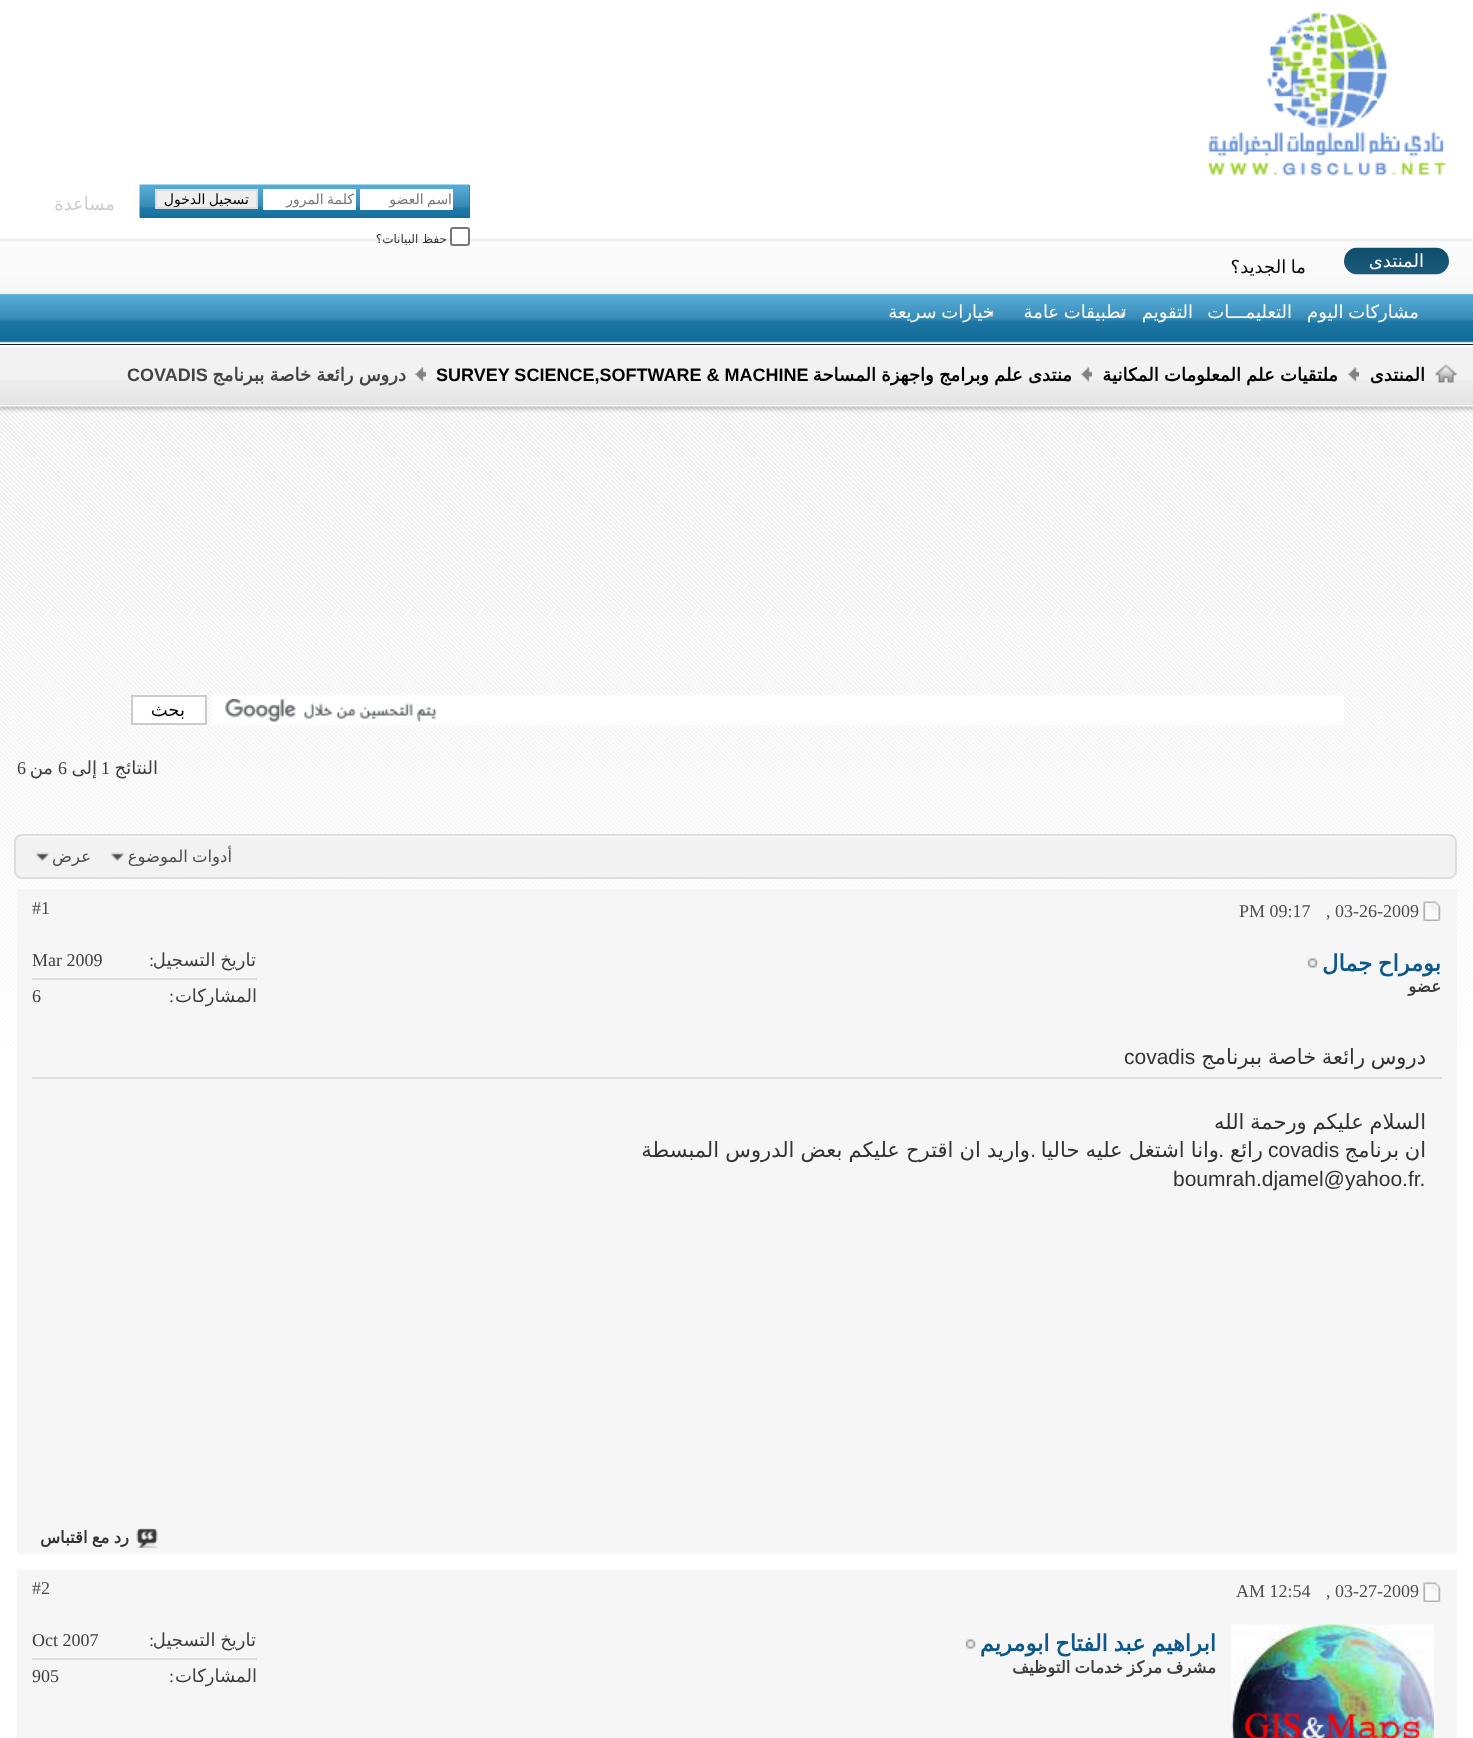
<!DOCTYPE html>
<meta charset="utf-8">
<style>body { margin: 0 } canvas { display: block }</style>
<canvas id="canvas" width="1473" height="1738"></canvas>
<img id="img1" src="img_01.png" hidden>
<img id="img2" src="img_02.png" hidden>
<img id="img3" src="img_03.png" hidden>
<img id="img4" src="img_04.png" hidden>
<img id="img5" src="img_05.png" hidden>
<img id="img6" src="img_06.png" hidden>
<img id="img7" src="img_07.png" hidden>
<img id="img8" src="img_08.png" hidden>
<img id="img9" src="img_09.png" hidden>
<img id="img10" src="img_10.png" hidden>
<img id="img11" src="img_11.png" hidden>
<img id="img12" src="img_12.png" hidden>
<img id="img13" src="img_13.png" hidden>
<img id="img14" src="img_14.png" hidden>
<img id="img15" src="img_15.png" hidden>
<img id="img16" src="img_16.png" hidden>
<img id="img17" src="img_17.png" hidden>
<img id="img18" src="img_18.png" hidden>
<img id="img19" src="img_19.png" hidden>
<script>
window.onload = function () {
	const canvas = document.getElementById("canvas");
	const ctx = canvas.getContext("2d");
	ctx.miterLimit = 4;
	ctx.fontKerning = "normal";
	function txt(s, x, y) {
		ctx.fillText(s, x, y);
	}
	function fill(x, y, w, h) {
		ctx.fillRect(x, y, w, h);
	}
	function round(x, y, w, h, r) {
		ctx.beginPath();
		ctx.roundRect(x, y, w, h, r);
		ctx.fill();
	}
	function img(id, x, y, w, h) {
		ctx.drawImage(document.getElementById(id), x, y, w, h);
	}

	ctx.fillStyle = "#FFFFFF";
	fill(0, 0, 1473, 1738);
	img("img1", 1207, 11, 240, 165);
	ctx.fillStyle = "#0F6B9A";
	fill(140, 185, 330, 33);
	img("img2", 139, 184, 331, 34);
	ctx.fillStyle = "#FFFFFF";
	fill(360, 189, 93, 21);
	fill(263, 189, 93, 21);
	ctx.fillStyle = "#EFEFEF";
	ctx.beginPath();
	ctx.rect(156, 190, 101, 18);
	ctx.fill();
	ctx.strokeStyle = "#DDDDDD";
	ctx.lineWidth = 2;
	ctx.stroke();
	img("img3", 0, 238, 1473, 105);
	ctx.fillStyle = "#FFFFFF";
	ctx.beginPath();
	ctx.roundRect(451, 228, 18, 17, 2);
	ctx.fill();
	ctx.strokeStyle = "#767676";
	ctx.stroke();
	ctx.fillStyle = "#222222";
	fill(0, 344, 1473, 1);
	img("img4", 1344, 247, 105, 28);
	img("img5", 1119, 310, 7, 7);
	img("img6", 987, 310, 7, 7);
	ctx.fillStyle = "#F2F2F2";
	fill(0, 347, 1473, 33);
	img("img7", 0, 380, 1473, 25);
	img("img8", 1435, 364, 22, 19);
	img("img9", 1348, 367, 11, 15);
	img("img10", 1081, 367, 11, 15);
	img("img9", 415, 367, 11, 15);
	img("img11", 0, 405, 1473, 643);
	ctx.fillStyle = "#FFFFFF";
	fill(212, 695, 1132, 30);
	img("img12", 225, 699, 212, 23);
	ctx.beginPath();
	ctx.rect(132, 696, 74, 28);
	ctx.fill();
	ctx.strokeStyle = "#CCCCCC";
	ctx.stroke();
	ctx.fillStyle = "#F2F2F2";
	round(15, 836, 1440, 42, 6);
	img("img13", 18, 836, 1433, 1);
	ctx.beginPath();
	ctx.roundRect(15, 835, 1441, 43, 7);
	ctx.strokeStyle = "#DDDDDD";
	ctx.stroke();
	img("img14", 110, 852, 15, 9);
	img("img14", 35, 852, 15, 9);
	ctx.fillStyle = "#F6F6F6";
	fill(17, 888, 1440, 135);
	ctx.fillStyle = "#FDFDFD";
	fill(17, 888, 1439, 1);
	img("img15", 1423, 901, 18, 20);
	img("img16", 1307, 958, 11, 10);
	ctx.fillStyle = "#DDDDDD";
	fill(32, 978, 225, 2);
	ctx.fillStyle = "#F6F6F6";
	fill(17, 1023, 1440, 531);
	ctx.fillStyle = "#DDDDDD";
	fill(32, 1077, 1410, 2);
	img("img17", 136, 1528, 22, 20);
	ctx.fillStyle = "#F6F6F6";
	fill(17, 1569, 1440, 169);
	ctx.fillStyle = "#FDFDFD";
	fill(17, 1569, 1439, 1);
	img("img15", 1423, 1582, 18, 20);
	img("img18", 1231, 1624, 203, 114);
	img("img19", 965, 1639, 11, 10);
	ctx.fillStyle = "#DDDDDD";
	fill(32, 1658, 225, 2);
	ctx.wordSpacing = "-1px";
	ctx.direction = "rtl";
	ctx.font = "14px DejaVu Sans";
	ctx.fillStyle = "#777777";
	txt("اسم العضو", 452, 204);
	txt("كلمة المرور", 354, 204);
	ctx.save();
	ctx.beginPath();
	ctx.rect(156, 191, 101, 16);
	ctx.clip();
	ctx.fillStyle = "#000000";
	txt("تسجيل الدخول", 249, 204);
	ctx.restore();
	ctx.wordSpacing = "0px";
	ctx.font = "12px DejaVu Sans";
	ctx.fillStyle = "#333333";
	txt("حفظ البيانات؟", 447, 243);
	ctx.font = "18px DejaVu Sans";
	ctx.fillStyle = "#CCCCCC";
	txt("مساعدة", 115, 210);
	ctx.fillStyle = "#FFFFFF";
	txt("المنتدى", 1424, 267);
	ctx.wordSpacing = "-1px";
	txt("مشاركات اليوم", 1419, 318);
	ctx.wordSpacing = "0px";
	txt("التعليمـــات", 1292, 318);
	txt("التقويم", 1193, 318);
	ctx.wordSpacing = "-1px";
	txt("تطبيقات عامة", 1126, 318);
	txt("خيارات سريعة", 994, 318);
	ctx.fillStyle = "#000000";
	txt("ما الجديد؟", 1306, 273);
	ctx.wordSpacing = "0px";
	ctx.font = "bold 18px DejaVu Sans";
	txt("المنتدى", 1425, 381);
	ctx.wordSpacing = "-0.5px";
	txt("ملتقيات علم المعلومات المكانية", 1338, 381);
	txt("منتدى علم وبرامج واجهزة المساحة", 1072, 381);
	ctx.wordSpacing = "0px";
	ctx.direction = "ltr";
	ctx.font = "bold 18px Liberation Sans";
	txt("SURVEY SCIENCE,SOFTWARE & MACHINE", 436, 381);
	ctx.wordSpacing = "-0.5px";
	ctx.direction = "rtl";
	ctx.font = "bold 18px DejaVu Sans";
	ctx.fillStyle = "#444444";
	txt("دروس رائعة خاصة ببرنامج", 406, 381);
	ctx.wordSpacing = "0px";
	ctx.direction = "ltr";
	ctx.font = "bold 18px Liberation Sans";
	txt("COVADIS", 127, 381);
	ctx.direction = "rtl";
	ctx.font = "18px DejaVu Sans";
	ctx.fillStyle = "#000000";
	txt("بحث", 185, 716);
	ctx.fillStyle = "#3E3E3E";
	txt("النتائج", 158, 774);
	ctx.direction = "ltr";
	ctx.font = "18px Liberation Serif";
	txt("1", 101, 774);
	ctx.direction = "rtl";
	ctx.font = "18px DejaVu Sans";
	txt("إلى", 97, 774);
	ctx.direction = "ltr";
	ctx.font = "18px Liberation Serif";
	txt("6", 58, 774);
	ctx.direction = "rtl";
	ctx.font = "18px DejaVu Sans";
	txt("من", 53, 774);
	ctx.direction = "ltr";
	ctx.font = "18px Liberation Serif";
	txt("6", 17, 774);
	ctx.wordSpacing = "-1px";
	ctx.direction = "rtl";
	ctx.font = "16.5px DejaVu Sans";
	ctx.fillStyle = "#4E4E4E";
	txt("أدوات الموضوع", 232, 862);
	ctx.wordSpacing = "0px";
	txt("عرض", 91, 862);
	ctx.direction = "ltr";
	ctx.font = "18px Liberation Serif";
	txt(", 03-26-2009", 1326, 917);
	txt("PM 09:17", 1239, 917);
	txt("#1", 32, 914);
	ctx.wordSpacing = "-1.5px";
	ctx.direction = "rtl";
	ctx.font = "bold 22.5px DejaVu Sans";
	ctx.fillStyle = "#0C588C";
	txt("بومراح جمال", 1441, 971);
	ctx.wordSpacing = "0px";
	ctx.font = "bold 16.5px DejaVu Sans";
	ctx.fillStyle = "#3E3E3E";
	txt("عضو", 1441, 992);
	ctx.wordSpacing = "-1px";
	ctx.font = "18px DejaVu Sans";
	txt("تاريخ التسجيل", 256, 966);
	ctx.wordSpacing = "0px";
	ctx.direction = "ltr";
	ctx.font = "18px Liberation Serif";
	txt(":", 149, 966);
	txt("Mar 2009", 32, 966);
	ctx.direction = "rtl";
	ctx.font = "18px DejaVu Sans";
	txt("المشاركات", 257, 1002);
	ctx.direction = "ltr";
	ctx.font = "18px Liberation Serif";
	txt(":", 169, 1002);
	txt("6", 32, 1002);
	ctx.wordSpacing = "-1px";
	ctx.direction = "rtl";
	ctx.font = "21px DejaVu Sans";
	ctx.fillStyle = "#333333";
	txt("دروس رائعة خاصة ببرنامج", 1426, 1064);
	ctx.wordSpacing = "0px";
	ctx.direction = "ltr";
	ctx.font = "21px Liberation Sans";
	txt("covadis", 1124, 1064);
	ctx.wordSpacing = "-1px";
	ctx.direction = "rtl";
	ctx.font = "21px DejaVu Sans";
	txt("السلام عليكم ورحمة الله", 1426, 1129);
	txt("ان برنامج", 1426, 1157);
	ctx.wordSpacing = "0px";
	ctx.direction = "ltr";
	ctx.font = "21px Liberation Sans";
	txt("covadis", 1268, 1157);
	ctx.direction = "rtl";
	ctx.font = "21px DejaVu Sans";
	txt("رائع", 1263, 1157);
	ctx.font = "21px Liberation Sans";
	txt(".", 1224, 1157);
	ctx.wordSpacing = "-0.5px";
	ctx.font = "21px DejaVu Sans";
	txt("وانا اشتغل عليه حاليا", 1219, 1157);
	ctx.wordSpacing = "0px";
	ctx.font = "21px Liberation Sans";
	txt(".", 1036, 1157);
	ctx.wordSpacing = "-0.5px";
	ctx.font = "21px DejaVu Sans";
	txt("واريد ان اقترح عليكم بعض الدروس المبسطة", 1030, 1157);
	ctx.wordSpacing = "0px";
	ctx.direction = "ltr";
	ctx.font = "21px Liberation Sans";
	txt("boumrah.djamel@yahoo.fr.", 1173, 1186);
	ctx.wordSpacing = "-1px";
	ctx.direction = "rtl";
	ctx.font = "bold 16.5px DejaVu Sans";
	txt("رد مع اقتباس", 129, 1543);
	ctx.wordSpacing = "0px";
	ctx.direction = "ltr";
	ctx.font = "18px Liberation Serif";
	ctx.fillStyle = "#4E4E4E";
	txt(", 03-27-2009", 1326, 1597);
	txt("AM 12:54", 1236, 1597);
	txt("#2", 32, 1594);
	ctx.wordSpacing = "-1.5px";
	ctx.direction = "rtl";
	ctx.font = "bold 22.5px DejaVu Sans";
	ctx.fillStyle = "#0C588C";
	txt("ابراهيم عبد الفتاح ابومريم", 1216, 1651);
	ctx.wordSpacing = "-1px";
	ctx.font = "bold 16.5px DejaVu Sans";
	ctx.fillStyle = "#3E3E3E";
	txt("مشرف مركز خدمات التوظيف", 1216, 1673);
	ctx.font = "18px DejaVu Sans";
	txt("تاريخ التسجيل", 256, 1646);
	ctx.wordSpacing = "0px";
	ctx.direction = "ltr";
	ctx.font = "18px Liberation Serif";
	txt(":", 149, 1646);
	txt("Oct 2007", 32, 1646);
	ctx.direction = "rtl";
	ctx.font = "18px DejaVu Sans";
	txt("المشاركات", 257, 1682);
	ctx.direction = "ltr";
	ctx.font = "18px Liberation Serif";
	txt(":", 169, 1682);
	txt("905", 32, 1682);
};
</script>
